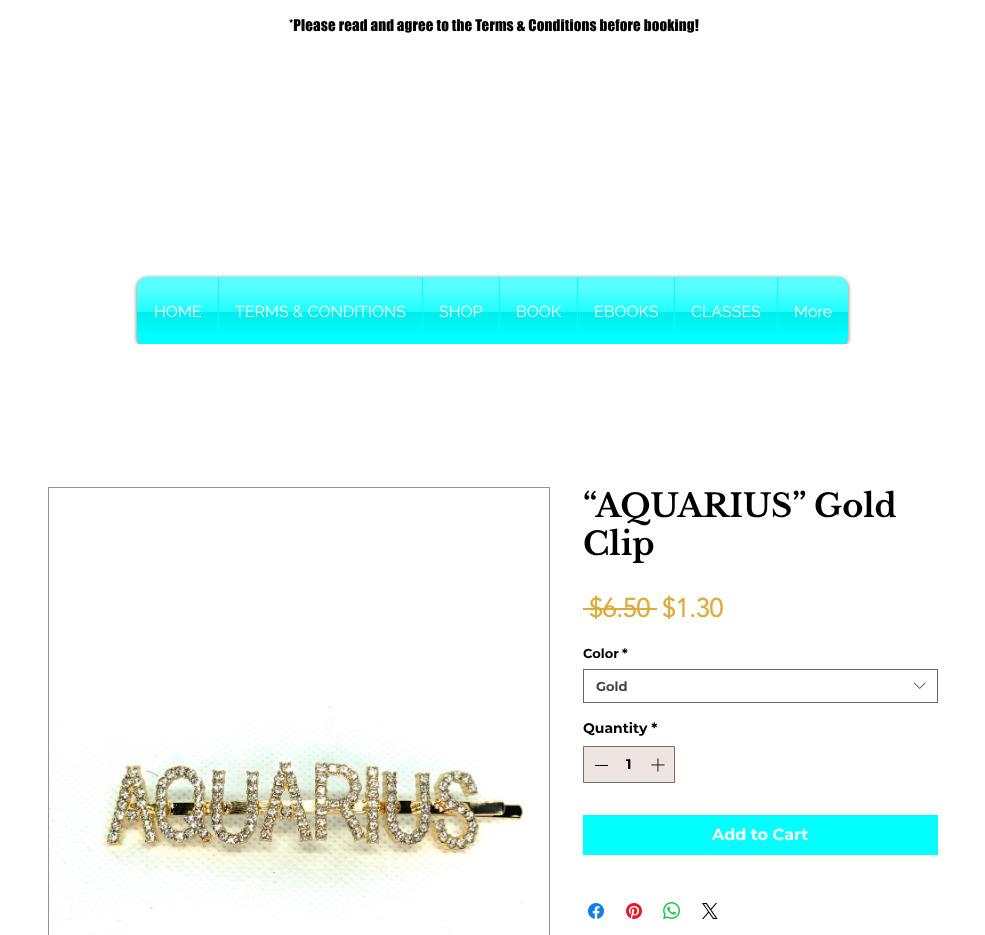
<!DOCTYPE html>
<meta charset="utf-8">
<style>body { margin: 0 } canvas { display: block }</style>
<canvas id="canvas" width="985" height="935"></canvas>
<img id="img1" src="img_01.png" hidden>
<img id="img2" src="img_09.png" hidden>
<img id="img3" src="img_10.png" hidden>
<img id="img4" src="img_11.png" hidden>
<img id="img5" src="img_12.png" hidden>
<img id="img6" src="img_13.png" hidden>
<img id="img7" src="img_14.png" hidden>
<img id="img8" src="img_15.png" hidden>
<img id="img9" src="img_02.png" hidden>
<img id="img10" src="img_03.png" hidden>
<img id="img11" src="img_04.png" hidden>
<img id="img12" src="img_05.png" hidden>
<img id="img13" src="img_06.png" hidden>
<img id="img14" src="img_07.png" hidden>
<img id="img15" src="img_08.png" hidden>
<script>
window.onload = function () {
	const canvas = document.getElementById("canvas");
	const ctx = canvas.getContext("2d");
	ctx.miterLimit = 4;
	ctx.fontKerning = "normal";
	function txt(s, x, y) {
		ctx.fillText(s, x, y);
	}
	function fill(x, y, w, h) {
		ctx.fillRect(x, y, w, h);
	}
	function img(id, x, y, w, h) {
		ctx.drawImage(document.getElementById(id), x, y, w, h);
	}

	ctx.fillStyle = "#FFFFFF";
	fill(0, 0, 985, 935);
	ctx.fillStyle = "rgba(0, 0, 0, 0.6)";
	ctx.filter = "blur(2px)";
	ctx.beginPath();
	ctx.roundRect(137, 278, 711, 70, 10);
	ctx.fill();
	ctx.filter = "none";
	img("img1", 137, 277, 711, 10);
	ctx.fillStyle = "#00FFFF";
	ctx.beginPath();
	ctx.roundRect(137, 277, 81, 70, [10, 0, 0, 10]);
	ctx.fill();
	fill(218, 277, 559, 67);
	ctx.beginPath();
	ctx.roundRect(777, 277, 71, 70, [0, 10, 10, 0]);
	ctx.fill();
	ctx.fillStyle = "#FFFFFF";
	fill(134, 344, 717, 8);
	ctx.strokeStyle = "#9E908A";
	ctx.strokeRect(48.5, 487.5, 501, 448);
	img("img2", 49, 705, 475, 230);
	ctx.fillStyle = "#DEAB3C";
	fill(583, 608, 74, 2);
	ctx.strokeStyle = "#666666";
	ctx.strokeRect(583.5, 669.5, 354, 33);
	img("img3", 914, 682, 12, 7);
	ctx.fillStyle = "#EEE4E0";
	ctx.beginPath();
	ctx.rect(583.5, 746.5, 91, 36);
	ctx.fill();
	ctx.strokeStyle = "#756D6A";
	ctx.stroke();
	ctx.fillStyle = "#000000";
	fill(595, 765, 13, 1);
	img("img4", 651, 758, 14, 14);
	ctx.fillStyle = "#00FFFF";
	fill(583, 815, 355, 40);
	img("img5", 588, 903, 16, 16);
	img("img6", 626, 903, 16, 16);
	img("img7", 663, 902, 17, 17);
	img("img8", 702, 903, 16, 16);
	ctx.letterSpacing = "0.15px";
	ctx.font = "15px 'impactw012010'";
	ctx.fillStyle = "#000000";
	txt("*Please read and agree to the Terms & Conditions before booking!", 289, 31);
	ctx.letterSpacing = "0px";
	ctx.font = "16px Raleway";
	ctx.fillStyle = "#FFFFFF";
	txt("HOME", 154, 317);
	img("img9", 137, 277, 81, 56);
	txt("TERMS & CONDITIONS", 235, 317);
	img("img10", 219, 277, 203, 56);
	txt("SHOP", 439, 317);
	img("img11", 423, 277, 76, 56);
	txt("BOOK", 516, 317);
	img("img12", 500, 277, 77, 56);
	txt("EBOOKS", 594, 317);
	img("img13", 578, 277, 96, 56);
	txt("CLASSES", 691, 317);
	img("img14", 675, 277, 102, 56);
	txt("More", 794, 317);
	img("img15", 778, 277, 70, 56);
	ctx.font = "bold 32px Libre Baskerville";
	ctx.fillStyle = "#000000";
	txt("“AQUARIUS” Gold", 583, 517);
	txt("Clip", 583, 555);
	ctx.font = "bold 26px 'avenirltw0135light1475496'";
	ctx.fillStyle = "#DEAB3C";
	txt("$6.50", 589, 617);
	txt("$1.30", 662, 617);
	ctx.font = "bold 13px Montserrat";
	ctx.fillStyle = "#000000";
	txt("Color", 583, 658);
	txt("*", 622, 658);
	ctx.fillStyle = "#444444";
	txt("Gold", 596, 691);
	ctx.font = "bold 14px Montserrat";
	ctx.fillStyle = "#000000";
	txt("Quantity *", 583, 733);
	txt("1", 626, 769);
	ctx.font = "bold 16px Montserrat";
	ctx.fillStyle = "#FFFFFF";
	txt("Add to Cart", 712, 840);
};
</script>
